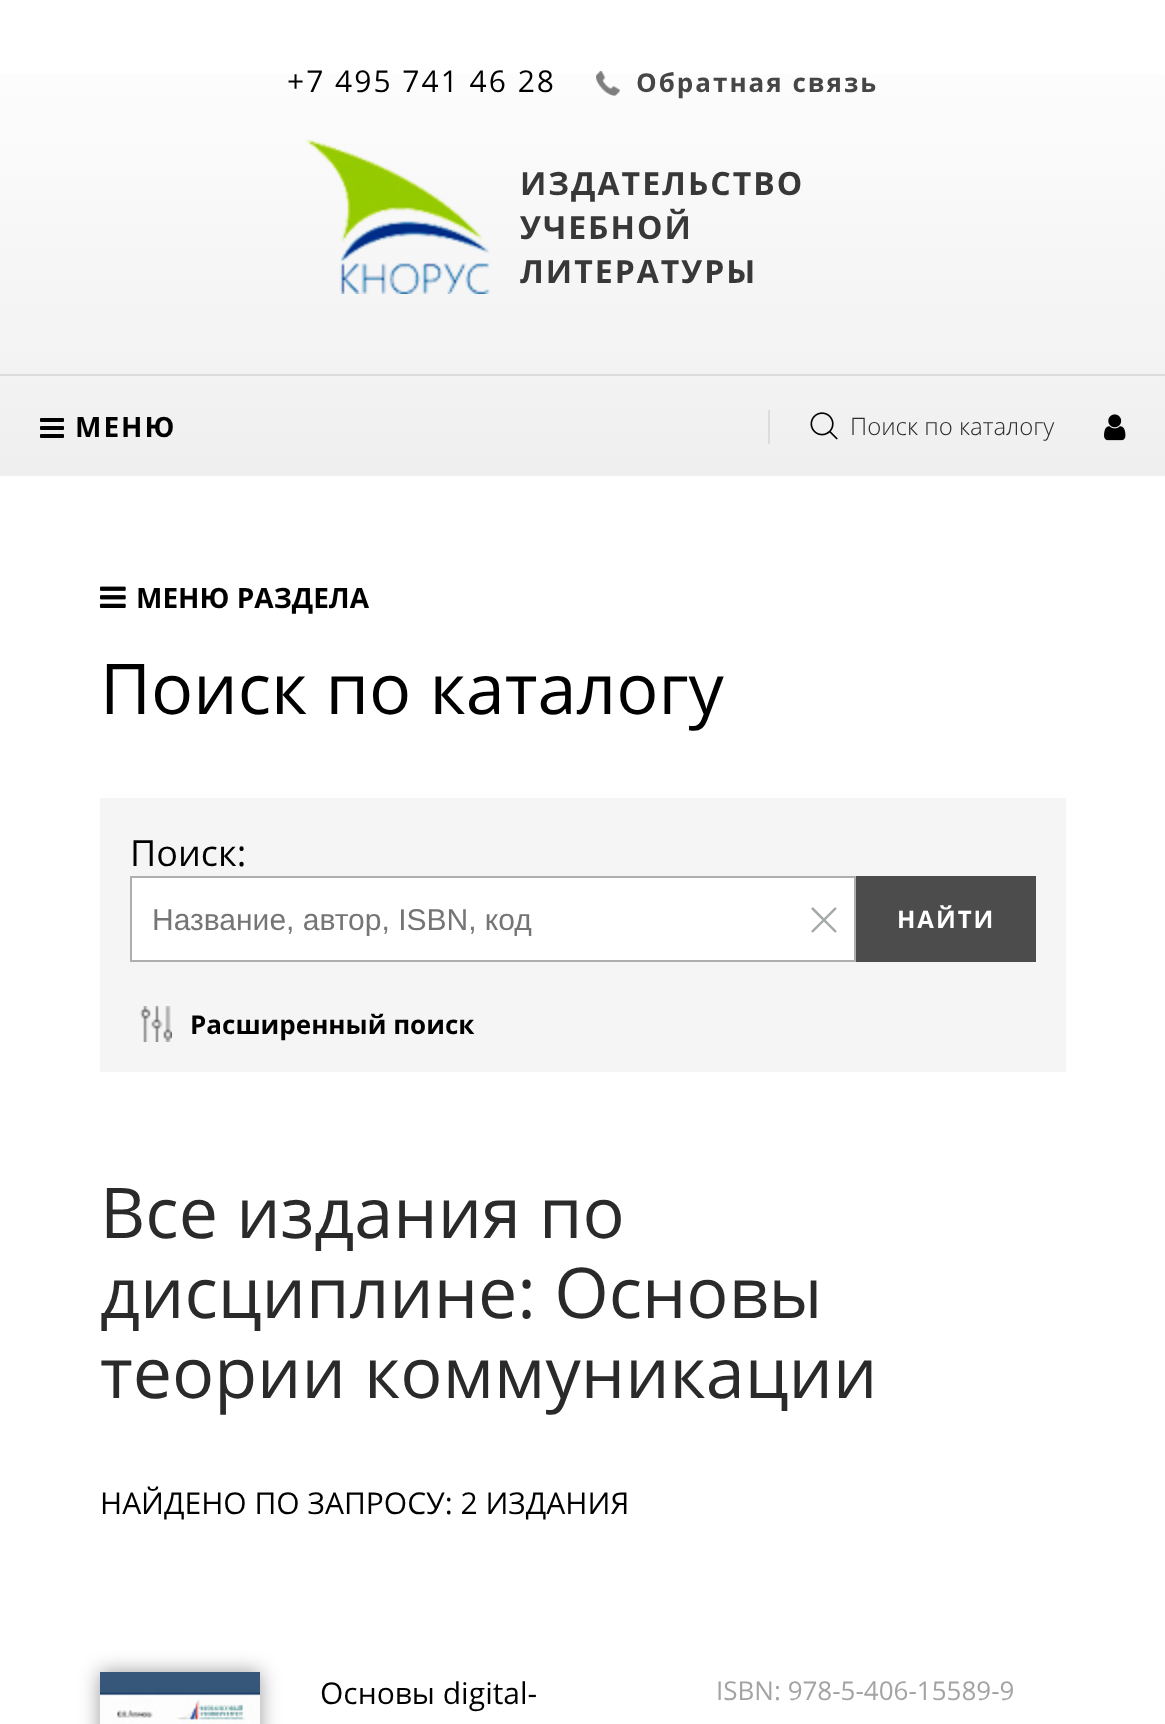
<!DOCTYPE html>
<meta charset="utf-8">
<style>body { margin: 0 } canvas { display: block }</style>
<canvas id="canvas" width="1165" height="1724"></canvas>
<img id="img1" src="img_01.png" hidden>
<img id="img2" src="img_02.png" hidden>
<img id="img3" src="img_03.png" hidden>
<img id="img4" src="img_04.png" hidden>
<img id="img5" src="img_05.png" hidden>
<img id="img6" src="img_06.png" hidden>
<img id="img7" src="img_07.png" hidden>
<img id="img8" src="img_08.png" hidden>
<img id="img9" src="img_09.png" hidden>
<script>
window.onload = function () {
	const canvas = document.getElementById("canvas");
	const ctx = canvas.getContext("2d");
	ctx.miterLimit = 4;
	ctx.fontKerning = "normal";
	function txt(s, x, y) {
		ctx.fillText(s, x, y);
	}
	function fill(x, y, w, h) {
		ctx.fillRect(x, y, w, h);
	}
	function img(id, x, y, w, h) {
		ctx.drawImage(document.getElementById(id), x, y, w, h);
	}
	let gradient;

	ctx.fillStyle = "#FFFFFF";
	fill(0, 0, 1165, 1724);
	gradient = ctx.createLinearGradient(583, 0, 583, 476);
	gradient.addColorStop(0, "#FFFFFF");
	gradient.addColorStop(1, "#EFEFEF");
	ctx.fillStyle = gradient;
	fill(0, 74, 1165, 402);
	ctx.fillStyle = "#DCDCDC";
	fill(0, 374, 1165, 2);
	img("img1", 596, 70, 24, 26);
	img("img2", 306, 140, 184, 154);
	img("img3", 40, 418, 24, 20);
	fill(768, 410, 2, 34);
	img("img4", 810, 412, 28, 28);
	img("img5", 1104, 414, 22, 27);
	img("img6", 100, 586, 26, 22);
	ctx.fillStyle = "#F5F5F5";
	fill(100, 798, 966, 274);
	ctx.fillStyle = "#FFFFFF";
	fill(132, 878, 722, 82);
	ctx.fillStyle = "#AEAEAE";
	fill(130, 876, 726, 2);
	fill(130, 960, 664, 2);
	fill(130, 876, 2, 86);
	img("img7", 811, 907, 26, 26);
	fill(854, 876, 2, 86);
	fill(794, 960, 62, 2);
	ctx.fillStyle = "#4C4C4C";
	fill(856, 876, 180, 86);
	img("img8", 140, 1006, 32, 36);
	ctx.fillStyle = "rgba(0, 0, 0, 0.4)";
	ctx.filter = "blur(10px)";
	ctx.beginPath();
	ctx.rect(100, 1672, 160, 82);
	ctx.fill();
	ctx.filter = "none";
	img("img9", 100, 1672, 160, 52);
	ctx.letterSpacing = "2px";
	ctx.font = "30px Open Sans";
	ctx.fillStyle = "#000000";
	txt("+7 495 741 46 28", 287, 92);
	ctx.font = "bold 26px Open Sans";
	ctx.fillStyle = "#464646";
	txt("Обратная связь", 636, 92);
	ctx.font = "bold 32px Open Sans";
	ctx.fillStyle = "#383838";
	txt("ИЗДАТЕЛЬСТВО", 520, 195);
	txt("УЧЕБНОЙ", 520, 239);
	txt("ЛИТЕРАТУРЫ", 520, 283);
	ctx.font = "bold 28px Open Sans";
	ctx.fillStyle = "#000000";
	txt("МЕНЮ", 75, 437);
	ctx.letterSpacing = "0px";
	ctx.font = "300 24px Open Sans";
	ctx.fillStyle = "#2A2A2A";
	txt("Поиск по каталогу", 850, 435);
	ctx.font = "bold 28px Open Sans";
	ctx.fillStyle = "#000000";
	txt("МЕНЮ РАЗДЕЛА", 136, 608);
	ctx.font = "70px Open Sans";
	txt("Поиск по каталогу", 100, 714);
	ctx.font = "36px Open Sans";
	txt("Поиск:", 130, 866);
	ctx.save();
	ctx.beginPath();
	ctx.rect(152, 902, 622, 34);
	ctx.clip();
	ctx.font = "30px Liberation Sans";
	ctx.fillStyle = "#757575";
	txt("Название, автор, ISBN, код", 152, 930);
	ctx.restore();
	ctx.letterSpacing = "2px";
	ctx.font = "bold 24px Open Sans";
	ctx.fillStyle = "#FFFFFF";
	txt("НАЙТИ", 897, 928);
	ctx.letterSpacing = "0px";
	ctx.font = "bold 26px Open Sans";
	ctx.fillStyle = "#000000";
	txt("Расширенный поиск", 190, 1034);
	ctx.font = "70px Open Sans";
	ctx.fillStyle = "#2A2A2A";
	txt("Все издания по", 100, 1238);
	txt("дисциплине: Основы", 100, 1318);
	txt("теории коммуникации", 100, 1398);
	ctx.font = "30px Open Sans";
	ctx.fillStyle = "#000000";
	txt("НАЙДЕНО ПО ЗАПРОСУ: 2 ИЗДАНИЯ", 100, 1514);
	txt("Основы digital-", 320, 1704);
	ctx.font = "26px Open Sans";
	ctx.fillStyle = "#A3A3A3";
	txt("ISBN: 978-5-406-15589-9", 716, 1700);
};
</script>
